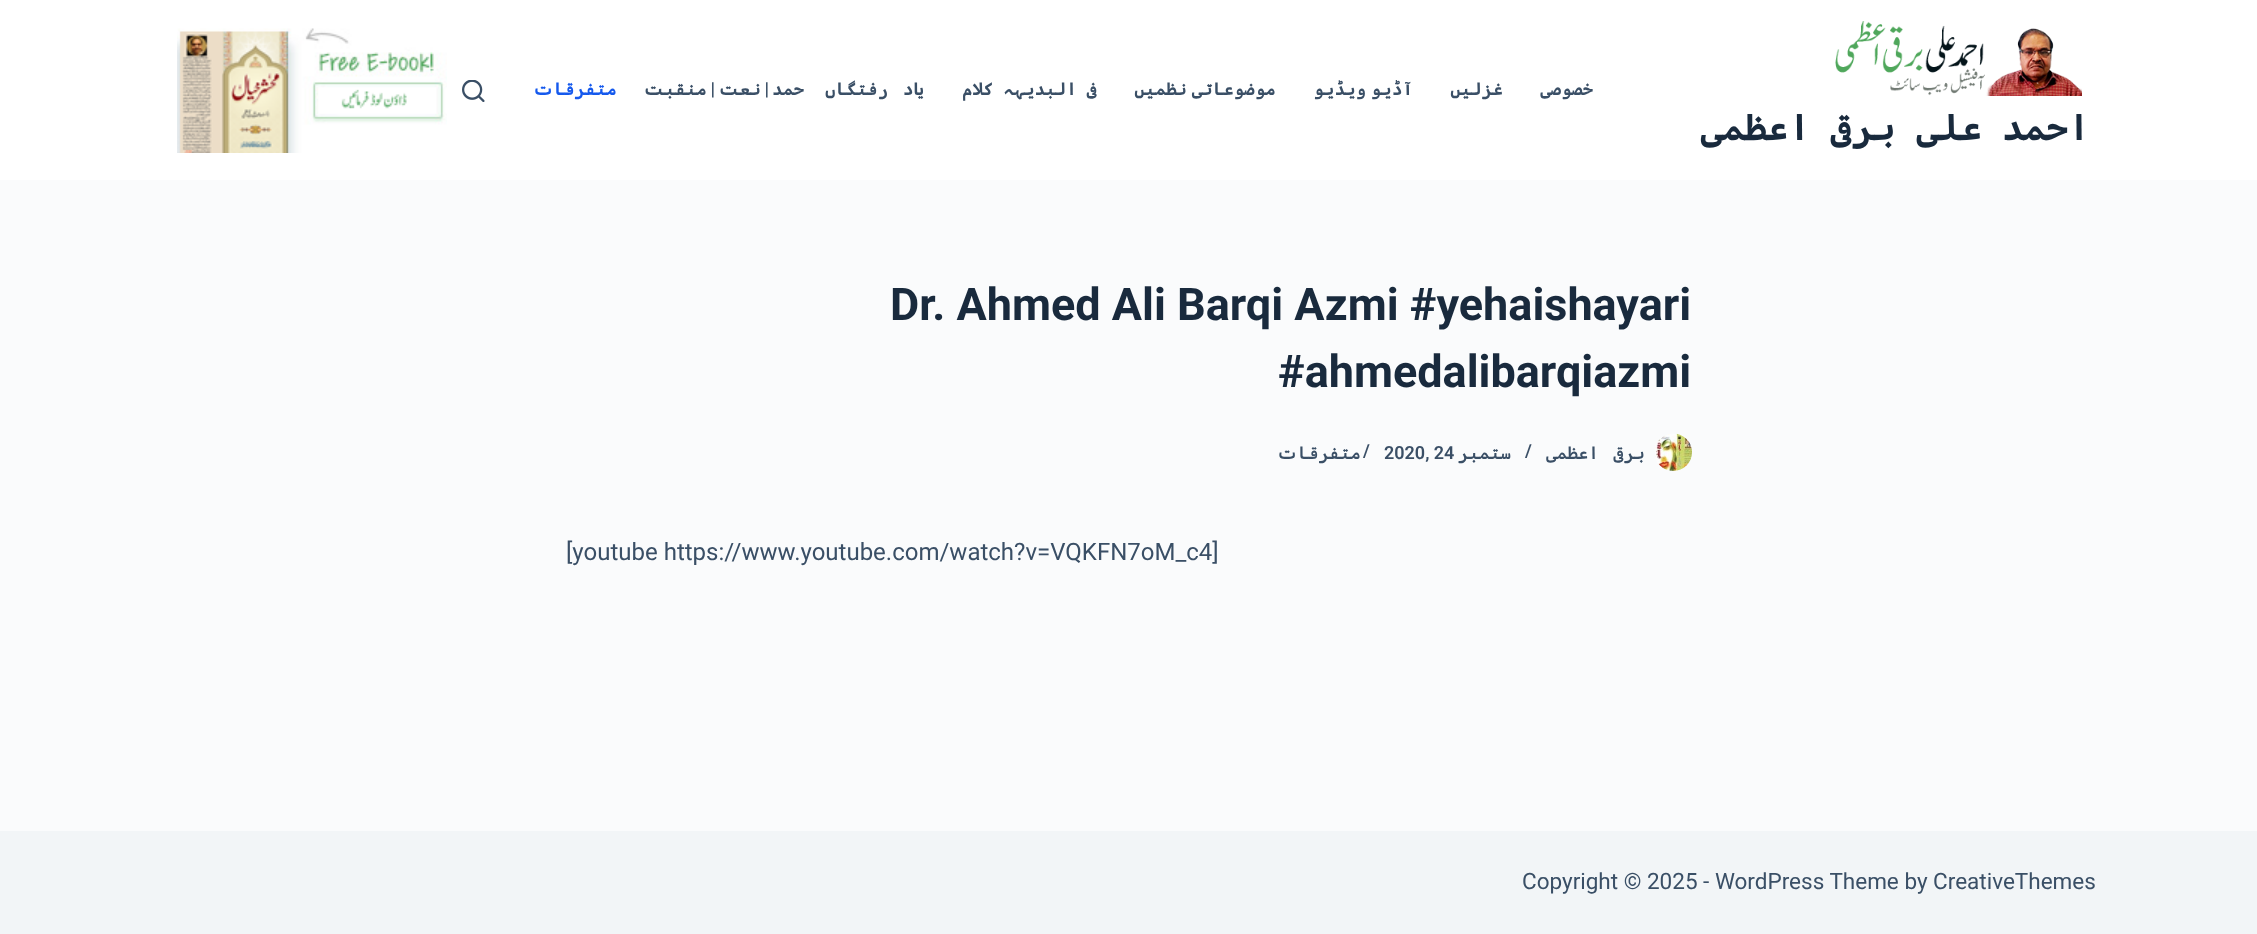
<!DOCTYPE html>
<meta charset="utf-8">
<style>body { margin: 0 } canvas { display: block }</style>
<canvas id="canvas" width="2257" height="934"></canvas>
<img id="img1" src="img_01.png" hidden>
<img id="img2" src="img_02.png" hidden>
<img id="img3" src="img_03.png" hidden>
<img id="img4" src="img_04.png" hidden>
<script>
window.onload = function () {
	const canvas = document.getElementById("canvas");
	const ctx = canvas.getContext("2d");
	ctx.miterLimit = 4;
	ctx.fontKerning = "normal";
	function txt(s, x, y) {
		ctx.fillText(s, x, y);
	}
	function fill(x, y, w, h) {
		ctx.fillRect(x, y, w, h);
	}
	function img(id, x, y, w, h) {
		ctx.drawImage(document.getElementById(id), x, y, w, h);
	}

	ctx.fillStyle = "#FAFBFC";
	fill(0, 0, 2257, 934);
	ctx.fillStyle = "#FFFFFF";
	fill(0, 0, 2257, 180);
	img("img1", 177, 28, 270, 125);
	img("img2", 462, 80, 23, 22);
	img("img3", 1835, 21, 247, 75);
	img("img4", 1655, 433, 37, 38);
	ctx.fillStyle = "#F2F5F7";
	fill(0, 831, 2257, 103);
	ctx.direction = "rtl";
	ctx.font = "bold 18px Cascadia Code";
	ctx.fillStyle = "#1559ED";
	txt("متفرقات", 617, 95);
	ctx.fillStyle = "#3A4F66";
	txt("منقبت", 707, 95);
	ctx.font = "bold 18px Roboto";
	txt("|", 715, 95);
	ctx.font = "bold 18px Cascadia Code";
	txt("نعت", 761, 95);
	ctx.font = "bold 18px Roboto";
	txt("|", 769, 95);
	ctx.font = "bold 18px Cascadia Code";
	txt("حمد", 804, 95);
	ctx.wordSpacing = "4px";
	txt("یاد رفتگاں", 924, 95);
	ctx.wordSpacing = "-1px";
	txt("فی البدیہہ کلام", 1097, 95);
	ctx.wordSpacing = "-6px";
	txt("موضوعاتی نظمیں", 1276, 95);
	txt("آڈیو ویڈیو", 1413, 95);
	ctx.wordSpacing = "0px";
	txt("غزلیں", 1503, 95);
	txt("خصوصی", 1593, 95);
	ctx.wordSpacing = "-2px";
	ctx.font = "bold 37.5px Cascadia Code";
	ctx.fillStyle = "#192A3D";
	txt("احمد علی برقی اعظمی", 2090, 140);
	ctx.wordSpacing = "0px";
	ctx.direction = "ltr";
	ctx.font = "bold 45px Roboto";
	txt("Dr. Ahmed Ali Barqi Azmi #yehaishayari", 890, 320);
	txt("#ahmedalibarqiazmi", 1278, 387);
	ctx.direction = "rtl";
	ctx.font = "600 18px Cascadia Code";
	ctx.fillStyle = "#3A4F66";
	txt("متفرقات", 1361, 459);
	ctx.direction = "ltr";
	ctx.font = "600 18px Roboto";
	txt("/", 1363, 457);
	txt("2020, 24", 1384, 459);
	ctx.direction = "rtl";
	ctx.font = "600 18px Cascadia Code";
	txt("ستمبر", 1511, 459);
	ctx.direction = "ltr";
	ctx.font = "600 18px Roboto";
	txt("/", 1525, 457);
	ctx.wordSpacing = "4px";
	ctx.direction = "rtl";
	ctx.font = "600 18px Cascadia Code";
	txt("برقی اعظمی", 1645, 459);
	ctx.wordSpacing = "0px";
	ctx.direction = "ltr";
	ctx.font = "24px Roboto";
	txt("[youtube https://www.youtube.com/watch?v=VQKFN7oM_c4]", 566, 560);
	ctx.font = "22.5px Roboto";
	txt("Copyright © 2025 - WordPress Theme by CreativeThemes", 1522, 889);
};
</script>
